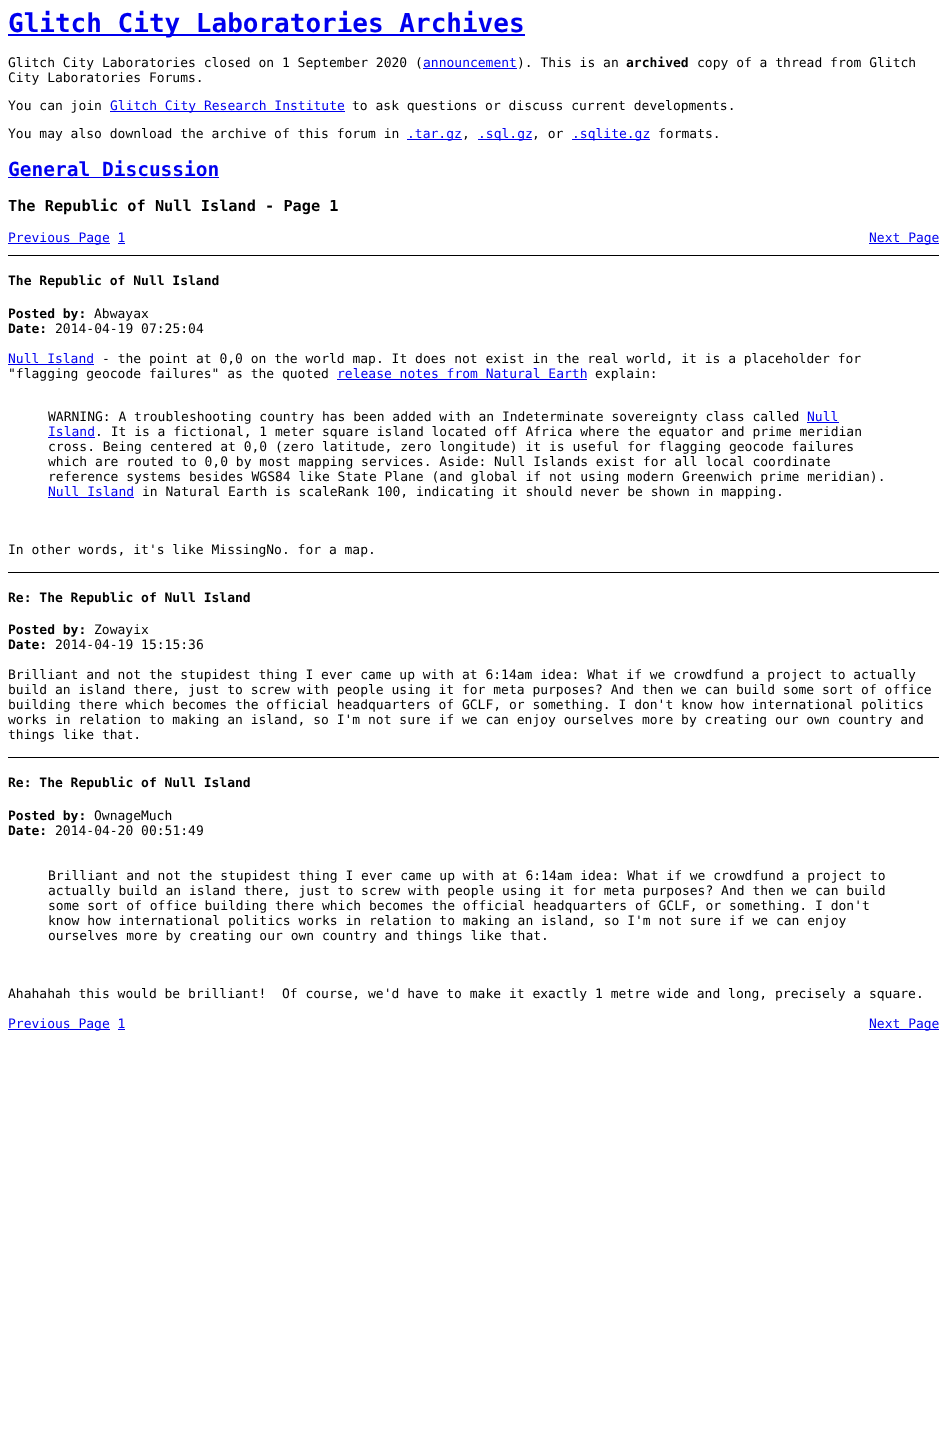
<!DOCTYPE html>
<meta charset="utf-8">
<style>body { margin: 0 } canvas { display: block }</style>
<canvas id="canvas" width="947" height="1445"></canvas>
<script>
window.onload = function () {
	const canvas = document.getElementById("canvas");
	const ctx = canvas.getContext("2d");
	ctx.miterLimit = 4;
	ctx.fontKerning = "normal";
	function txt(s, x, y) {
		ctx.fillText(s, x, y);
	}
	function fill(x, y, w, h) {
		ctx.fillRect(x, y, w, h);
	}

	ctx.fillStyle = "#FFFFFF";
	fill(0, 0, 947, 1445);
	ctx.fillStyle = "#0000EE";
	fill(8, 34, 517, 2);
	fill(423, 68, 94, 1);
	fill(110, 111, 235, 1);
	fill(407, 139, 55, 1);
	fill(478, 139, 54, 1);
	fill(572, 139, 78, 1);
	fill(8, 177, 211, 1);
	fill(8, 243, 102, 1);
	fill(869, 243, 70, 1);
	fill(118, 243, 7, 1);
	ctx.fillStyle = "#000000";
	fill(8, 255, 931, 1);
	ctx.fillStyle = "#0000EE";
	fill(8, 364, 86, 1);
	fill(337, 379, 250, 1);
	fill(807, 422, 32, 1);
	fill(48, 437, 47, 1);
	fill(48, 497, 86, 1);
	ctx.fillStyle = "#000000";
	fill(8, 572, 931, 1);
	fill(8, 757, 931, 1);
	ctx.fillStyle = "#0000EE";
	fill(8, 1029, 102, 1);
	fill(869, 1029, 70, 1);
	fill(118, 1029, 7, 1);
	ctx.font = "bold 26px DejaVu Sans Mono";
	txt("Glitch City Laboratories Archives", 8, 32);
	ctx.font = "13px DejaVu Sans Mono";
	ctx.fillStyle = "#000000";
	txt("Glitch City Laboratories closed on 1 September 2020 (", 8, 67);
	ctx.fillStyle = "#0000EE";
	txt("announcement", 423, 67);
	ctx.fillStyle = "#000000";
	txt("). This is an", 517, 67);
	ctx.font = "bold 13px DejaVu Sans Mono";
	txt("archived", 626, 67);
	ctx.font = "13px DejaVu Sans Mono";
	txt("copy of a thread from Glitch", 697, 67);
	txt("City Laboratories Forums.", 8, 82);
	txt("You can join", 8, 110);
	ctx.fillStyle = "#0000EE";
	txt("Glitch City Research Institute", 110, 110);
	ctx.fillStyle = "#000000";
	txt("to ask questions or discuss current developments.", 352, 110);
	txt("You may also download the archive of this forum in", 8, 138);
	ctx.fillStyle = "#0000EE";
	txt(".tar.gz", 407, 138);
	ctx.fillStyle = "#000000";
	txt(",", 462, 138);
	ctx.fillStyle = "#0000EE";
	txt(".sql.gz", 478, 138);
	ctx.fillStyle = "#000000";
	txt(", or", 532, 138);
	ctx.fillStyle = "#0000EE";
	txt(".sqlite.gz", 572, 138);
	ctx.fillStyle = "#000000";
	txt("formats.", 658, 138);
	ctx.font = "bold 19.5px DejaVu Sans Mono";
	ctx.fillStyle = "#0000EE";
	txt("General Discussion", 8, 176);
	ctx.font = "bold 15.25px DejaVu Sans Mono";
	ctx.fillStyle = "#000000";
	txt("The Republic of Null Island - Page 1", 8, 211);
	ctx.font = "13px DejaVu Sans Mono";
	ctx.fillStyle = "#0000EE";
	txt("Previous Page 1", 8, 242);
	txt("Next Page", 869, 242);
	ctx.font = "bold 13px DejaVu Sans Mono";
	ctx.fillStyle = "#000000";
	txt("The Republic of Null Island", 8, 285);
	txt("Posted by:", 8, 318);
	ctx.font = "13px DejaVu Sans Mono";
	txt("Abwayax", 94, 318);
	ctx.font = "bold 13px DejaVu Sans Mono";
	txt("Date:", 8, 333);
	ctx.font = "13px DejaVu Sans Mono";
	txt("2014-04-19 07:25:04", 55, 333);
	ctx.fillStyle = "#0000EE";
	txt("Null Island", 8, 363);
	ctx.fillStyle = "#000000";
	txt("- the point at 0,0 on the world map. It does not exist in the real world, it is a placeholder for", 102, 363);
	txt("\"flagging geocode failures\" as the quoted", 8, 378);
	ctx.fillStyle = "#0000EE";
	txt("release notes from Natural Earth", 337, 378);
	ctx.fillStyle = "#000000";
	txt("explain:", 595, 378);
	txt("WARNING: A troubleshooting country has been added with an Indeterminate sovereignty class called", 48, 421);
	ctx.fillStyle = "#0000EE";
	txt("Null", 807, 421);
	txt("Island", 48, 436);
	ctx.fillStyle = "#000000";
	txt(". It is a fictional, 1 meter square island located off Africa where the equator and prime meridian", 95, 436);
	txt("cross. Being centered at 0,0 (zero latitude, zero longitude) it is useful for flagging geocode failures", 48, 451);
	txt("which are routed to 0,0 by most mapping services. Aside: Null Islands exist for all local coordinate", 48, 466);
	txt("reference systems besides WGS84 like State Plane (and global if not using modern Greenwich prime meridian).", 48, 481);
	ctx.fillStyle = "#0000EE";
	txt("Null Island", 48, 496);
	ctx.fillStyle = "#000000";
	txt("in Natural Earth is scaleRank 100, indicating it should never be shown in mapping.", 142, 496);
	txt("In other words, it's like MissingNo. for a map.", 8, 554);
	ctx.font = "bold 13px DejaVu Sans Mono";
	txt("Re: The Republic of Null Island", 8, 602);
	txt("Posted by:", 8, 634);
	ctx.font = "13px DejaVu Sans Mono";
	txt("Zowayix", 94, 634);
	ctx.font = "bold 13px DejaVu Sans Mono";
	txt("Date:", 8, 649);
	ctx.font = "13px DejaVu Sans Mono";
	txt("2014-04-19 15:15:36", 55, 649);
	txt("Brilliant and not the stupidest thing I ever came up with at 6:14am idea: What if we crowdfund a project to actually", 8, 679);
	txt("build an island there, just to screw with people using it for meta purposes? And then we can build some sort of office", 8, 694);
	txt("building there which becomes the official headquarters of GCLF, or something. I don't know how international politics", 8, 709);
	txt("works in relation to making an island, so I'm not sure if we can enjoy ourselves more by creating our own country and", 8, 724);
	txt("things like that.", 8, 739);
	ctx.font = "bold 13px DejaVu Sans Mono";
	txt("Re: The Republic of Null Island", 8, 787);
	txt("Posted by:", 8, 820);
	ctx.font = "13px DejaVu Sans Mono";
	txt("OwnageMuch", 94, 820);
	ctx.font = "bold 13px DejaVu Sans Mono";
	txt("Date:", 8, 835);
	ctx.font = "13px DejaVu Sans Mono";
	txt("2014-04-20 00:51:49", 55, 835);
	txt("Brilliant and not the stupidest thing I ever came up with at 6:14am idea: What if we crowdfund a project to", 48, 880);
	txt("actually build an island there, just to screw with people using it for meta purposes? And then we can build", 48, 895);
	txt("some sort of office building there which becomes the official headquarters of GCLF, or something. I don't", 48, 910);
	txt("know how international politics works in relation to making an island, so I'm not sure if we can enjoy", 48, 925);
	txt("ourselves more by creating our own country and things like that.", 48, 940);
	txt("Ahahahah this would be brilliant!  Of course, we'd have to make it exactly 1 metre wide and long, precisely a square.", 8, 998);
	ctx.fillStyle = "#0000EE";
	txt("Previous Page 1", 8, 1028);
	txt("Next Page", 869, 1028);
};
</script>
